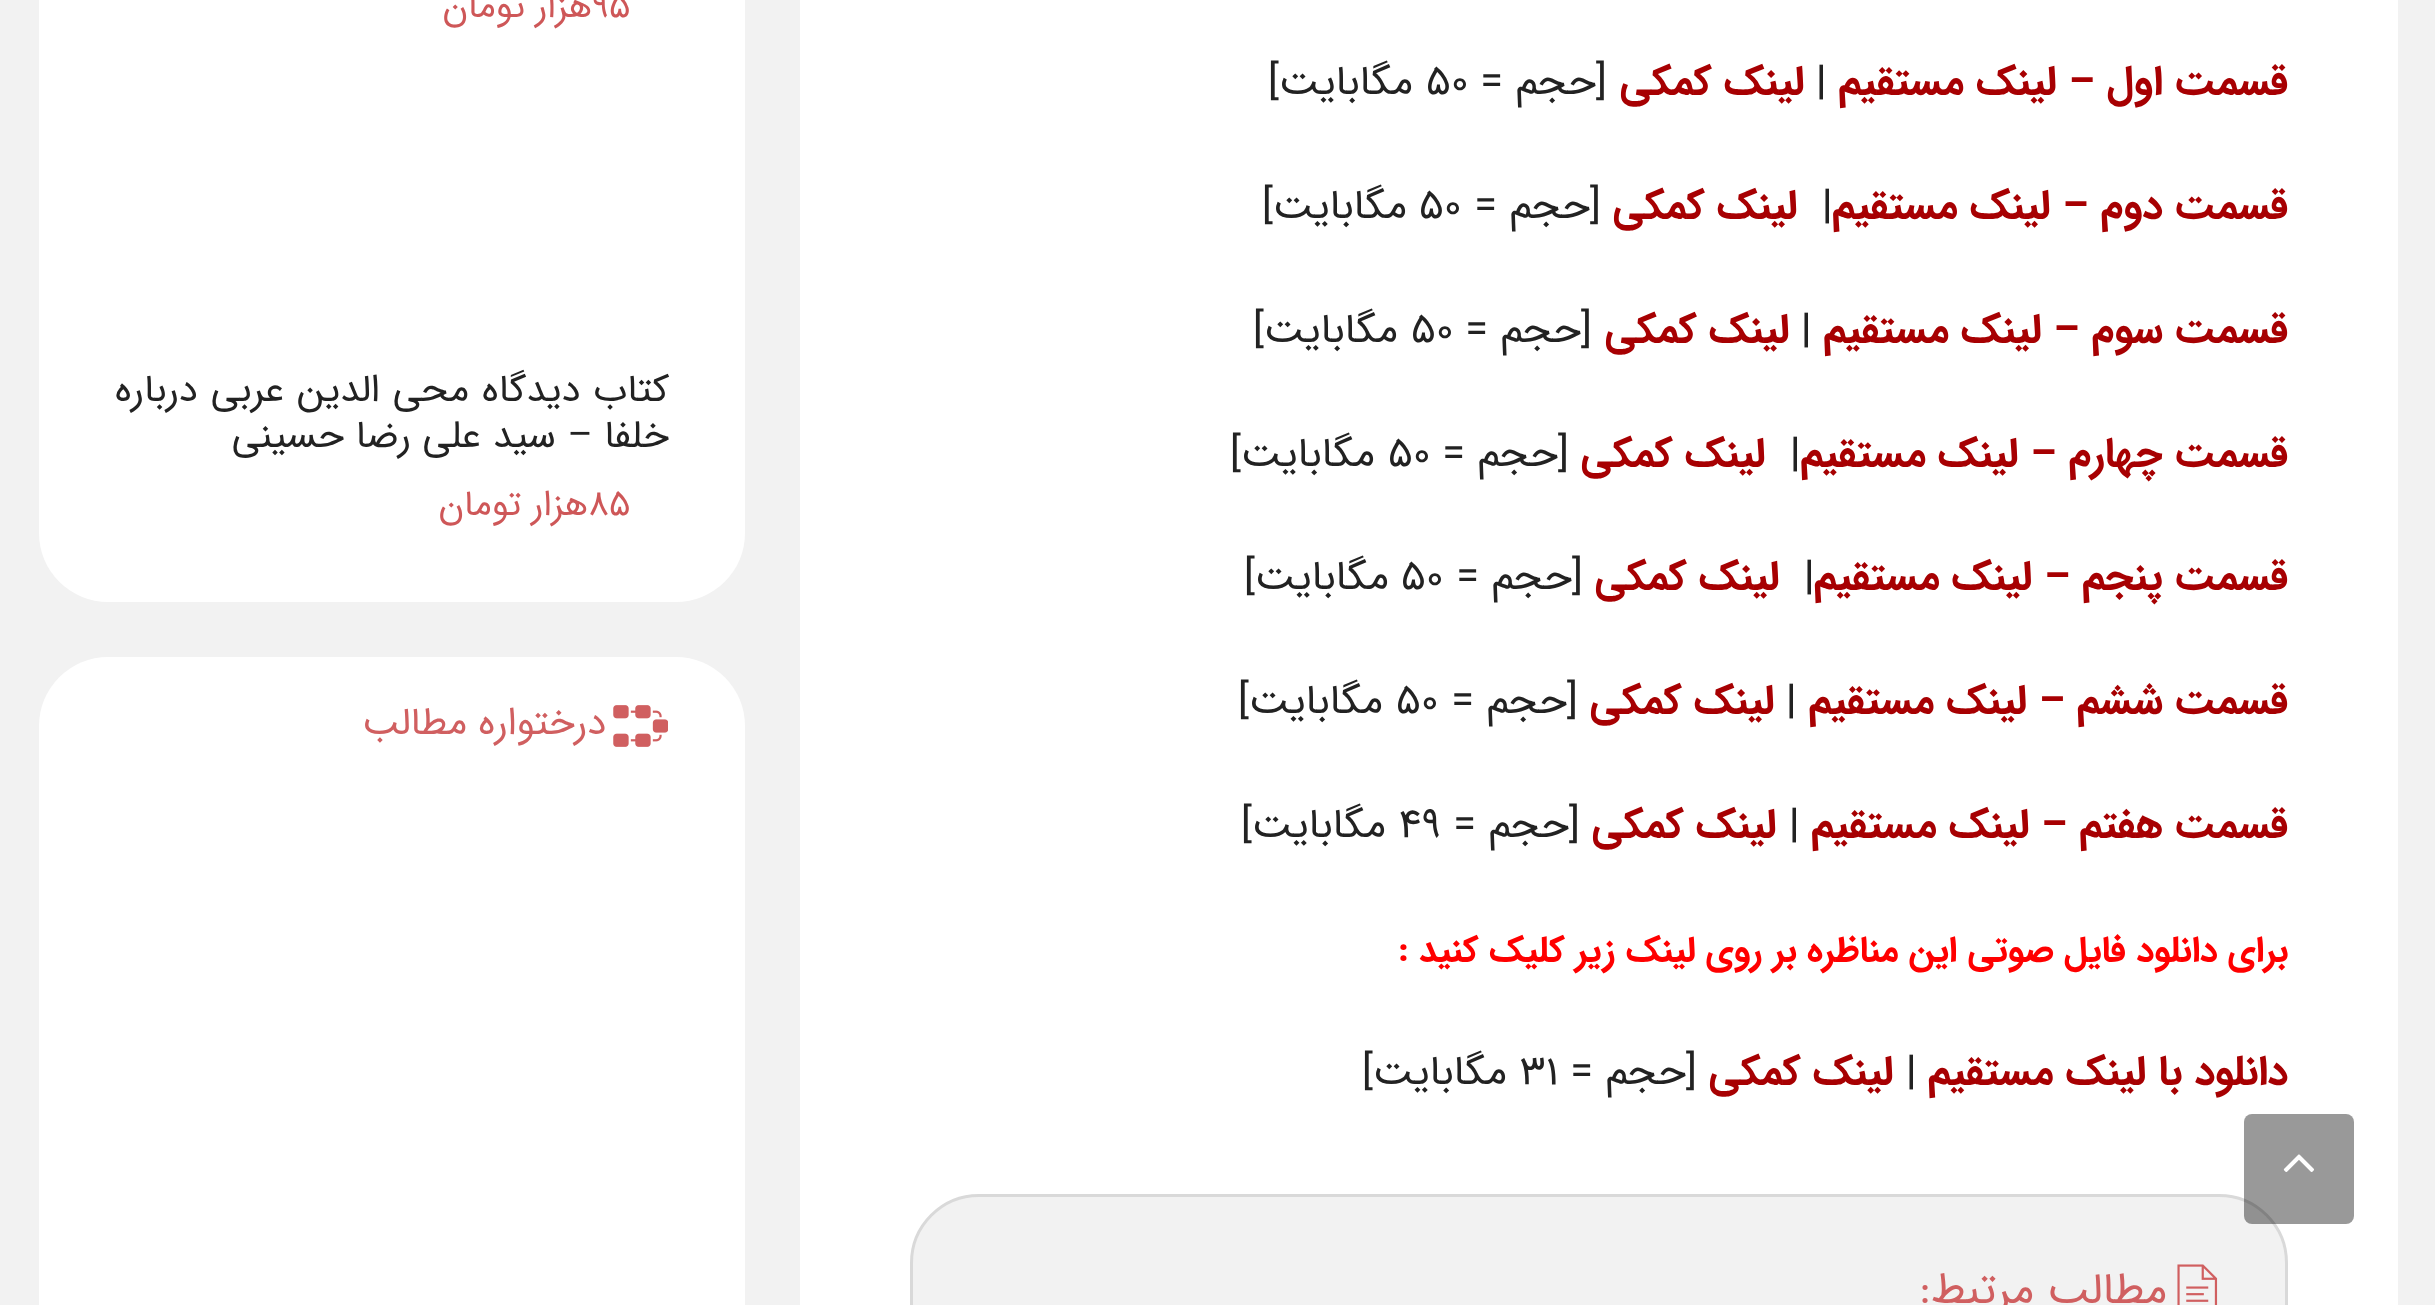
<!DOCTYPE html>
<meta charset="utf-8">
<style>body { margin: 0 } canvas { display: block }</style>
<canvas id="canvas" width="2435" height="1305"></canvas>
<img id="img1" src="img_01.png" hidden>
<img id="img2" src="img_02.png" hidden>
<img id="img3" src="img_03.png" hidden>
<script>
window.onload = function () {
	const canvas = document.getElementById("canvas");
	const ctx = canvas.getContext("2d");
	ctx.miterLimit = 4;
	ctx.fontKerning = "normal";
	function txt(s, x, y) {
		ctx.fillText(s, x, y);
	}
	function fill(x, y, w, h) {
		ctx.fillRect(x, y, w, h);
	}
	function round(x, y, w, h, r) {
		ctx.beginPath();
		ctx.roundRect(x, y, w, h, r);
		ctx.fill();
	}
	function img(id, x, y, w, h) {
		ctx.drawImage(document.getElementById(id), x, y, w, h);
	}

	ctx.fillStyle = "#F2F2F2";
	fill(0, 0, 2435, 1305);
	ctx.fillStyle = "#FFFFFF";
	fill(800, 0, 1598, 1305);
	ctx.fillStyle = "#F2F2F2";
	ctx.beginPath();
	ctx.roundRect(911.5, 1195.5, 1375, 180, 67.5);
	ctx.fill();
	ctx.strokeStyle = "#D9D9D9";
	ctx.lineWidth = 3;
	ctx.stroke();
	ctx.fillStyle = "rgba(0, 0, 0, 0.4)";
	round(2244, 1114, 110, 110, 8);
	img("img1", 2283, 1154, 31, 18);
	img("img2", 2177, 1264, 41, 41);
	ctx.fillStyle = "#FFFFFF";
	round(39, -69, 706, 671, 69);
	round(39, 657, 706, 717, 69);
	img("img3", 613, 705, 55, 42);
	ctx.direction = "rtl";
	ctx.font = "bold 41.25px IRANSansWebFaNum";
	ctx.fillStyle = "#A70002";
	txt("قسمت اول – لینک مستقیم", 2288, 94);
	ctx.direction = "ltr";
	ctx.fillStyle = "#222222";
	txt("|", 1816, 94);
	ctx.direction = "rtl";
	ctx.fillStyle = "#A70002";
	txt("لینک کمکی", 1804, 94);
	ctx.font = "41.25px IRANSansWebFaNum";
	ctx.fillStyle = "#222222";
	txt("[حجم =", 1607, 94);
	ctx.direction = "ltr";
	txt("۵۰", 1426, 94);
	ctx.direction = "rtl";
	txt("مگابایت]", 1413, 94);
	ctx.font = "bold 41.25px IRANSansWebFaNum";
	ctx.fillStyle = "#A70002";
	txt("قسمت دوم – لینک مستقیم", 2288, 218);
	ctx.direction = "ltr";
	ctx.fillStyle = "#222222";
	txt("|", 1822, 218);
	ctx.direction = "rtl";
	ctx.fillStyle = "#A70002";
	txt("لینک کمکی", 1797, 218);
	ctx.font = "41.25px IRANSansWebFaNum";
	ctx.fillStyle = "#222222";
	txt("[حجم =", 1601, 218);
	ctx.direction = "ltr";
	txt("۵۰", 1419, 218);
	ctx.direction = "rtl";
	txt("مگابایت]", 1407, 218);
	ctx.font = "bold 41.25px IRANSansWebFaNum";
	ctx.fillStyle = "#A70002";
	txt("قسمت سوم – لینک مستقیم", 2288, 342);
	ctx.direction = "ltr";
	ctx.fillStyle = "#222222";
	txt("|", 1801, 342);
	ctx.direction = "rtl";
	ctx.fillStyle = "#A70002";
	txt("لینک کمکی", 1789, 342);
	ctx.font = "41.25px IRANSansWebFaNum";
	ctx.fillStyle = "#222222";
	txt("[حجم =", 1592, 342);
	ctx.direction = "ltr";
	txt("۵۰", 1411, 342);
	ctx.direction = "rtl";
	txt("مگابایت]", 1398, 342);
	ctx.font = "bold 41.25px IRANSansWebFaNum";
	ctx.fillStyle = "#A70002";
	txt("قسمت چهارم – لینک مستقیم", 2288, 466);
	ctx.direction = "ltr";
	ctx.fillStyle = "#222222";
	txt("|", 1790, 466);
	ctx.direction = "rtl";
	ctx.fillStyle = "#A70002";
	txt("لینک کمکی", 1765, 466);
	ctx.font = "41.25px IRANSansWebFaNum";
	ctx.fillStyle = "#222222";
	txt("[حجم =", 1569, 466);
	ctx.direction = "ltr";
	txt("۵۰", 1388, 466);
	ctx.direction = "rtl";
	txt("مگابایت]", 1375, 466);
	ctx.font = "bold 41.25px IRANSansWebFaNum";
	ctx.fillStyle = "#A70002";
	txt("قسمت پنجم – لینک مستقیم", 2288, 589);
	ctx.direction = "ltr";
	ctx.fillStyle = "#222222";
	txt("|", 1804, 589);
	ctx.direction = "rtl";
	ctx.fillStyle = "#A70002";
	txt("لینک کمکی", 1779, 589);
	ctx.font = "41.25px IRANSansWebFaNum";
	ctx.fillStyle = "#222222";
	txt("[حجم =", 1583, 589);
	ctx.direction = "ltr";
	txt("۵۰", 1401, 589);
	ctx.direction = "rtl";
	txt("مگابایت]", 1389, 589);
	ctx.font = "bold 41.25px IRANSansWebFaNum";
	ctx.fillStyle = "#A70002";
	txt("قسمت ششم – لینک مستقیم", 2288, 713);
	ctx.direction = "ltr";
	ctx.fillStyle = "#222222";
	txt("|", 1786, 713);
	ctx.direction = "rtl";
	ctx.fillStyle = "#A70002";
	txt("لینک کمکی", 1774, 713);
	ctx.font = "41.25px IRANSansWebFaNum";
	ctx.fillStyle = "#222222";
	txt("[حجم =", 1578, 713);
	ctx.direction = "ltr";
	txt("۵۰", 1396, 713);
	ctx.direction = "rtl";
	txt("مگابایت]", 1383, 713);
	ctx.font = "bold 41.25px IRANSansWebFaNum";
	ctx.fillStyle = "#A70002";
	txt("قسمت هفتم – لینک مستقیم", 2288, 837);
	ctx.direction = "ltr";
	ctx.fillStyle = "#222222";
	txt("|", 1789, 837);
	ctx.direction = "rtl";
	ctx.fillStyle = "#A70002";
	txt("لینک کمکی", 1776, 837);
	ctx.font = "41.25px IRANSansWebFaNum";
	ctx.fillStyle = "#222222";
	txt("[حجم =", 1580, 837);
	ctx.direction = "ltr";
	txt("۴۹", 1399, 837);
	ctx.direction = "rtl";
	txt("مگابایت]", 1386, 837);
	ctx.font = "bold 35.75px IRANSansWebFaNum";
	ctx.fillStyle = "#FF0000";
	txt("برای دانلود فایل صوتی این مناظره بر روی لینک زیر کلیک کنید :", 2288, 961);
	ctx.font = "bold 41.25px IRANSansWebFaNum";
	ctx.fillStyle = "#A70002";
	txt("دانلود با لینک مستقیم", 2288, 1084);
	ctx.direction = "ltr";
	ctx.fillStyle = "#222222";
	txt("|", 1906, 1084);
	ctx.direction = "rtl";
	ctx.fillStyle = "#A70002";
	txt("لینک کمکی", 1893, 1084);
	ctx.font = "41.25px IRANSansWebFaNum";
	ctx.fillStyle = "#222222";
	txt("[حجم =", 1697, 1084);
	ctx.direction = "ltr";
	txt("۳۱", 1520, 1084);
	ctx.direction = "rtl";
	txt("مگابایت]", 1507, 1084);
	ctx.font = "44px IRANSansWebFaNum";
	ctx.fillStyle = "#D05F60";
	txt("مطالب مرتبط:", 2167, 1303);
	ctx.direction = "ltr";
	ctx.font = "35.75px IRANSansWebFaNum";
	ctx.fillStyle = "#CE5758";
	txt("95", 592, 17);
	ctx.direction = "rtl";
	txt("هزار تومان", 592, 17);
	ctx.wordSpacing = "1.5px";
	ctx.font = "38.5px IRANSansWebFaNum";
	ctx.fillStyle = "#222222";
	txt("کتاب دیدگاه محی الدین عربی درباره", 669, 401);
	ctx.wordSpacing = "0px";
	txt("خلفا – سید علی رضا حسینی", 669, 447);
	ctx.direction = "ltr";
	ctx.font = "35.75px IRANSansWebFaNum";
	ctx.fillStyle = "#CE5758";
	txt("85", 588, 515);
	ctx.direction = "rtl";
	txt("هزار تومان", 588, 515);
	ctx.font = "38.5px IRANSansWebFaNum";
	ctx.fillStyle = "#D05F60";
	txt("درختواره مطالب", 606, 734);
};
</script>
